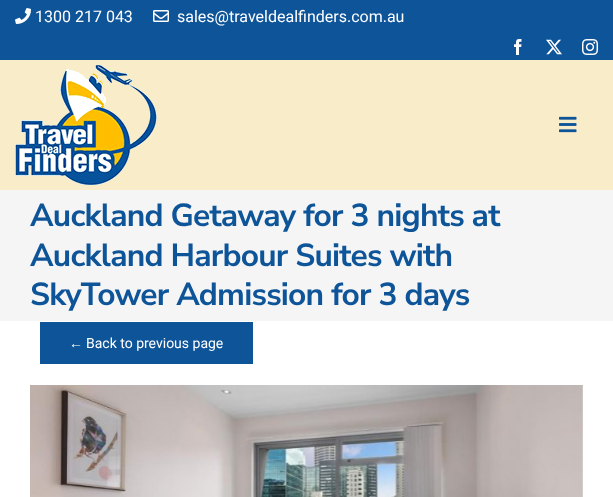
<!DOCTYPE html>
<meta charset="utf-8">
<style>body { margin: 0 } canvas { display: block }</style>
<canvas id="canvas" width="613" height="497"></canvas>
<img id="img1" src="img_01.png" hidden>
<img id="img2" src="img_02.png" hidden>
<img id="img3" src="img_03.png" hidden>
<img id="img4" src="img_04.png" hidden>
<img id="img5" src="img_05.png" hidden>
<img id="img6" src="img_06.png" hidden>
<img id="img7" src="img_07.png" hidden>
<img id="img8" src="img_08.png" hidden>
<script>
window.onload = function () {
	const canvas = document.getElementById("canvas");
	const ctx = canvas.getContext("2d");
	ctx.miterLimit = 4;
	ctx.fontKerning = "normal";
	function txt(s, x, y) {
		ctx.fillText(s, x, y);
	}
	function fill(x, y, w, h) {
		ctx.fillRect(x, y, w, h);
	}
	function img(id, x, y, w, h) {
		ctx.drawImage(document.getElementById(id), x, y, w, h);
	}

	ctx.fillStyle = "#FFFFFF";
	fill(0, 0, 613, 497);
	ctx.fillStyle = "#0E5499";
	fill(0, 0, 613, 60);
	img("img1", 15, 8, 16, 16);
	img("img2", 153, 10, 16, 12);
	img("img3", 514, 39, 8, 16);
	img("img4", 546, 39, 16, 16);
	img("img5", 582, 39, 16, 16);
	ctx.fillStyle = "#F9ECC8";
	fill(0, 60, 613, 130);
	img("img6", 15, 65, 142, 120);
	img("img7", 559, 116, 18, 17);
	ctx.fillStyle = "#F5F5F5";
	fill(0, 190, 613, 131);
	ctx.fillStyle = "#0E5499";
	fill(40, 322, 213, 42);
	img("img8", 30, 385, 553, 112);
	ctx.font = "16px Roboto";
	ctx.fillStyle = "#FFFFFF";
	txt("1300 217 043", 35, 22);
	txt("sales@traveldealfinders.com.au", 177, 22);
	ctx.letterSpacing = "-0.8px";
	ctx.font = "bold 31.75px Nunito Sans";
	ctx.fillStyle = "#0E5499";
	txt("Auckland Getaway for 3 nights at", 30, 226);
	txt("Auckland Harbour Suites with", 30, 266);
	txt("SkyTower Admission for 3 days", 30, 305);
	ctx.letterSpacing = "0px";
	ctx.font = "14px Liberation Sans";
	ctx.fillStyle = "#FFFFFF";
	txt("←", 69, 348);
	ctx.font = "14px Roboto";
	txt("Back to previous page", 86, 348);
};
</script>
